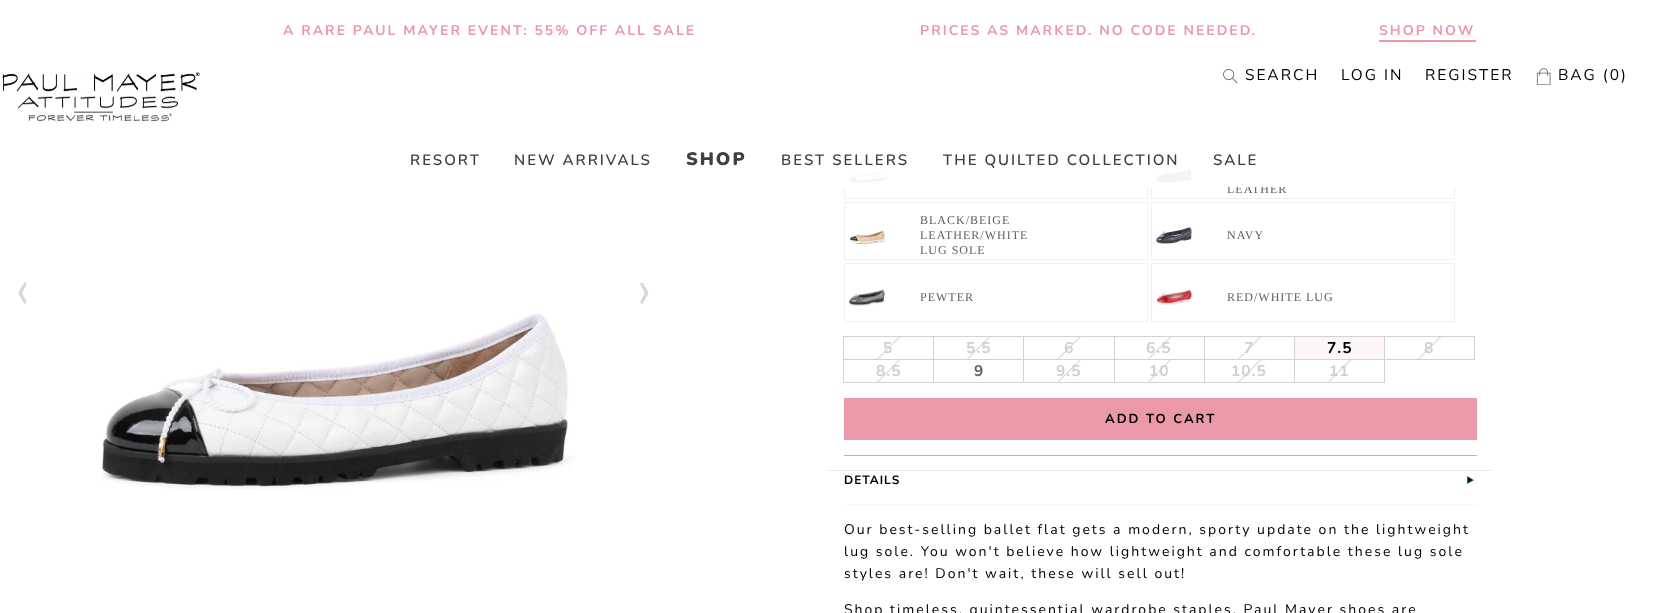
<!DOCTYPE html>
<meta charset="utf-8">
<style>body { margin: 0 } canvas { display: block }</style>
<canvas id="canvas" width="1658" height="613"></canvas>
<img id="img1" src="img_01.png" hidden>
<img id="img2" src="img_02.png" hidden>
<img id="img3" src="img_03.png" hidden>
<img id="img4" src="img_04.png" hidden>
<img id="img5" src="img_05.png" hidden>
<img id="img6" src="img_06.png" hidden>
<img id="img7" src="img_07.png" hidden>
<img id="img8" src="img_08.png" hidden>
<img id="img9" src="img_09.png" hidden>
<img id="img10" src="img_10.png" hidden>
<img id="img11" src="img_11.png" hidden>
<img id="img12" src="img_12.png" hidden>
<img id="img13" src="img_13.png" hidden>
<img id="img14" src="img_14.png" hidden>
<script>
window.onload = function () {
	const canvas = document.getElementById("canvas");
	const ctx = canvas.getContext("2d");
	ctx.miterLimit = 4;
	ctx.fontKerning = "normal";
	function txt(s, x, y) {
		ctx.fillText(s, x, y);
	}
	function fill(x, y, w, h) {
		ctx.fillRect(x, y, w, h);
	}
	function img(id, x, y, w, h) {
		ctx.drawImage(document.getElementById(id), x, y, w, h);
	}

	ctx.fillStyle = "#FFFFFF";
	fill(0, 0, 1658, 613);
	ctx.fillStyle = "#EB99A9";
	fill(1379, 40, 97, 2);
	img("img1", 0, 72, 200, 50);
	img("img2", 1223, 69, 15, 15);
	img("img3", 1536, 68, 15, 17);
	img("img4", 101, 314, 475, 176);
	ctx.strokeStyle = "#F0F0F0";
	ctx.strokeRect(844.5, 140.5, 303, 58);
	img("img5", 849, 169, 36, 14);
	ctx.strokeRect(1151.5, 140.5, 303, 58);
	img("img6", 1156, 169, 36, 14);
	ctx.strokeRect(844.5, 202.5, 303, 57);
	img("img7", 849, 230, 36, 14);
	ctx.strokeRect(1151.5, 202.5, 303, 57);
	img("img8", 1156, 227, 36, 17);
	ctx.strokeRect(844.5, 263.5, 303, 58);
	img("img9", 849, 289, 36, 17);
	ctx.strokeRect(1151.5, 263.5, 303, 58);
	img("img10", 1156, 289, 36, 17);
	img("img11", 876, 337, 25, 22);
	ctx.strokeStyle = "#D2D2D2";
	ctx.strokeRect(843.5, 336.5, 90, 23);
	img("img11", 966, 337, 25, 22);
	ctx.strokeRect(933.5, 336.5, 90, 23);
	img("img12", 1057, 337, 25, 22);
	ctx.strokeRect(1023.5, 336.5, 91, 23);
	img("img11", 1147, 337, 25, 22);
	ctx.strokeRect(1114.5, 336.5, 90, 23);
	img("img11", 1237, 337, 25, 22);
	ctx.strokeRect(1204.5, 336.5, 90, 23);
	ctx.fillStyle = "#FDF6F6";
	ctx.beginPath();
	ctx.rect(1294.5, 336.5, 90, 23);
	ctx.fill();
	ctx.stroke();
	img("img11", 1417, 337, 25, 22);
	ctx.strokeRect(1384.5, 336.5, 90, 23);
	img("img11", 876, 360, 25, 22);
	ctx.strokeRect(843.5, 359.5, 90, 23);
	ctx.strokeRect(933.5, 359.5, 90, 23);
	img("img13", 1057, 360, 24, 22);
	ctx.strokeRect(1023.5, 359.5, 91, 23);
	img("img11", 1147, 360, 25, 22);
	ctx.strokeRect(1114.5, 359.5, 90, 23);
	img("img11", 1237, 360, 25, 22);
	ctx.strokeRect(1204.5, 359.5, 90, 23);
	img("img11", 1327, 360, 25, 22);
	ctx.strokeRect(1294.5, 359.5, 90, 23);
	ctx.fillStyle = "#EB99A9";
	fill(844, 398, 633, 42);
	fill(844, 455, 633, 1);
	img("img14", 1467, 476, 7, 8);
	ctx.fillStyle = "#FDF6F6";
	fill(844, 504, 633, 1);
	ctx.fillStyle = "#E6E6E6";
	fill(829, 470, 663, 1);
	ctx.letterSpacing = "2px";
	ctx.font = "bold 14px Nunito";
	ctx.fillStyle = "#EB99A9";
	txt("A RARE PAUL MAYER EVENT: 55% OFF ALL SALE", 283, 35);
	txt("PRICES AS MARKED. NO CODE NEEDED.", 920, 35);
	txt("SHOP NOW", 1379, 35);
	ctx.font = "15.5px Nunito";
	ctx.fillStyle = "#000000";
	txt("SEARCH", 1245, 80);
	txt("LOG IN", 1341, 80);
	txt("REGISTER", 1425, 80);
	txt("BAG (0)", 1558, 80);
	ctx.font = "600 15px Nunito";
	ctx.fillStyle = "#404040";
	txt("RESORT", 410, 165);
	txt("NEW ARRIVALS", 514, 165);
	ctx.font = "900 18px Nunito";
	txt("SHOP", 686, 165);
	ctx.font = "300 60px Nunito";
	ctx.fillStyle = "#D8D8D8";
	txt("‹", 15, 309);
	txt("›", 637, 309);
	ctx.letterSpacing = "1px";
	ctx.font = "12px Liberation Serif";
	ctx.fillStyle = "#5F5F5F";
	txt("LEATHER", 1227, 193);
	ctx.fillStyle = "rgba(255, 255, 255, 0.95)";
	fill(844, 140, 611, 46);
	ctx.letterSpacing = "2px";
	ctx.font = "600 15px Nunito";
	ctx.fillStyle = "#404040";
	txt("SALE", 1213, 165);
	txt("THE QUILTED COLLECTION", 943, 165);
	txt("BEST SELLERS", 781, 165);
	ctx.fillStyle = "#FFFFFF";
	fill(844, 186, 611, 1);
	ctx.letterSpacing = "1px";
	ctx.font = "12px Liberation Serif";
	ctx.fillStyle = "#5F5F5F";
	txt("BLACK/BEIGE", 920, 224);
	txt("LEATHER/WHITE", 920, 239);
	txt("LUG SOLE", 920, 254);
	txt("NAVY", 1227, 239);
	txt("PEWTER", 920, 301);
	txt("RED/WHITE LUG", 1227, 301);
	ctx.font = "bold 15.5px Nunito";
	ctx.fillStyle = "#D0D0D0";
	txt("5", 883, 353);
	txt("5.5", 966, 353);
	txt("6", 1064, 353);
	txt("6.5", 1146, 353);
	txt("7", 1244, 353);
	ctx.fillStyle = "#000000";
	txt("7.5", 1327, 353);
	ctx.fillStyle = "#D0D0D0";
	txt("8", 1424, 353);
	txt("8.5", 876, 376);
	ctx.fillStyle = "#5F5F5F";
	txt("9", 974, 376);
	ctx.fillStyle = "#D0D0D0";
	txt("9.5", 1056, 376);
	txt("10", 1149, 376);
	txt("10.5", 1231, 376);
	txt("11", 1329, 376);
	ctx.letterSpacing = "2px";
	ctx.font = "bold 13px Nunito";
	ctx.fillStyle = "#000000";
	txt("ADD TO CART", 1105, 423);
	ctx.letterSpacing = "1px";
	ctx.font = "bold 12px Nunito";
	txt("DETAILS", 844, 484);
	ctx.letterSpacing = "2px";
	ctx.font = "14px Nunito";
	txt("Our best-selling ballet flat gets a modern, sporty update on the lightweight", 844, 534);
	txt("lug sole. You won't believe how lightweight and comfortable these lug sole", 844, 556);
	txt("styles are! Don't wait, these will sell out!", 844, 578);
	txt("Shop timeless, quintessential wardrobe staples. Paul Mayer shoes are", 844, 614);
};
</script>
